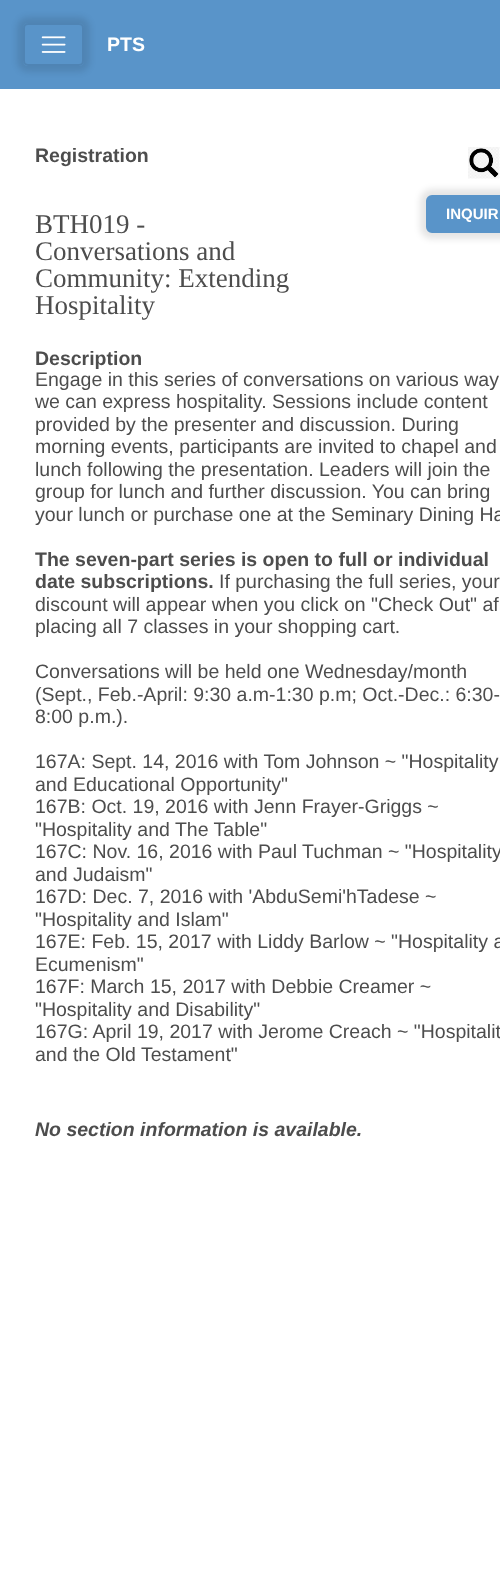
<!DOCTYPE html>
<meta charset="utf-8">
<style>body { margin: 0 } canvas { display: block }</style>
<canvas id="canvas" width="500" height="1580"></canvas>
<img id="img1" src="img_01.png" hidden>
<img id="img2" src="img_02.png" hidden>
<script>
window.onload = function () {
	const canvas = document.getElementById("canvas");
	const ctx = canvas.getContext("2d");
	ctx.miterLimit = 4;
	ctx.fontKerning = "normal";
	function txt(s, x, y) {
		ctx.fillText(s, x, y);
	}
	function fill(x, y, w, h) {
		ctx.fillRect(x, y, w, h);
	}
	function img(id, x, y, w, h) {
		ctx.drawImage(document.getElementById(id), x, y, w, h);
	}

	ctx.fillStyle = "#FFFFFF";
	fill(0, 0, 500, 1580);
	ctx.fillStyle = "#5994C9";
	fill(0, 0, 500, 89);
	ctx.save();
	ctx.beginPath();
	ctx.moveTo(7, 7);
	ctx.lineTo(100, 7);
	ctx.lineTo(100, 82);
	ctx.lineTo(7, 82);
	ctx.closePath();
	ctx.moveTo(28, 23);
	ctx.lineTo(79, 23);
	ctx.bezierCurveTo(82, 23, 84, 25, 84, 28);
	ctx.lineTo(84, 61);
	ctx.bezierCurveTo(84, 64, 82, 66, 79, 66);
	ctx.lineTo(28, 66);
	ctx.bezierCurveTo(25, 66, 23, 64, 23, 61);
	ctx.lineTo(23, 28);
	ctx.bezierCurveTo(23, 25, 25, 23, 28, 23);
	ctx.closePath();
	ctx.clip("evenodd");
	ctx.fillStyle = "rgba(0, 0, 0, 0.1)";
	ctx.filter = "blur(3px)";
	ctx.beginPath();
	ctx.roundRect(17, 17, 73, 55, 11);
	ctx.fill();
	ctx.filter = "none";
	ctx.restore();
	ctx.beginPath();
	ctx.roundRect(24, 24, 59, 41, 4);
	ctx.strokeStyle = "rgba(0, 0, 0, 0.1)";
	ctx.lineWidth = 2;
	ctx.stroke();
	img("img1", 41, 36, 25, 17);
	img("img2", 468, 147, 32, 32);
	ctx.fillStyle = "rgba(0, 0, 0, 0.1)";
	ctx.filter = "blur(3px)";
	ctx.beginPath();
	ctx.roundRect(420, 189, 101, 50, 12);
	ctx.fill();
	ctx.filter = "none";
	ctx.fillStyle = "#5994C9";
	ctx.beginPath();
	ctx.roundRect(427, 196, 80, 36, 5);
	ctx.fill();
	ctx.strokeStyle = "#5994C9";
	ctx.stroke();
	ctx.font = "bold 19.5px Liberation Sans";
	ctx.fillStyle = "#FFFFFF";
	txt("PTS", 107, 51);
	ctx.fillStyle = "#4D4D4D";
	txt("Registration", 35, 162);
	ctx.font = "27px Liberation Serif";
	txt("BTH019 -", 35, 233);
	txt("Conversations and", 35, 260);
	txt("Community: Extending", 35, 287);
	txt("Hospitality", 35, 314);
	ctx.font = "bold 15px Liberation Sans";
	ctx.fillStyle = "#FFFFFF";
	txt("INQUIR", 446, 219);
	ctx.font = "bold 19.5px Liberation Sans";
	ctx.fillStyle = "#4D4D4D";
	txt("Description", 35, 365);
	ctx.font = "19.5px Liberation Sans";
	txt("Engage in this series of conversations on various way", 35, 386);
	txt("we can express hospitality. Sessions include content", 35, 408);
	txt("provided by the presenter and discussion. During", 35, 431);
	txt("morning events, participants are invited to chapel and", 35, 453);
	txt("lunch following the presentation. Leaders will join the", 35, 476);
	txt("group for lunch and further discussion. You can bring", 35, 498);
	txt("your lunch or purchase one at the Seminary Dining Ha", 35, 521);
	ctx.font = "bold 19.5px Liberation Sans";
	txt("The seven-part series is open to full or individual", 35, 566);
	txt("date subscriptions.", 35, 588);
	ctx.font = "19.5px Liberation Sans";
	txt("If purchasing the full series, your", 219, 588);
	txt("discount will appear when you click on \"Check Out\" af", 35, 611);
	txt("placing all 7 classes in your shopping cart.", 35, 633);
	txt("Conversations will be held one Wednesday/month", 35, 678);
	txt("(Sept., Feb.-April: 9:30 a.m-1:30 p.m; Oct.-Dec.: 6:30-", 35, 701);
	txt("8:00 p.m.).", 35, 723);
	txt("167A: Sept. 14, 2016 with Tom Johnson ~ \"Hospitality", 35, 768);
	txt("and Educational Opportunity\"", 35, 791);
	txt("167B: Oct. 19, 2016 with Jenn Frayer-Griggs ~", 35, 813);
	txt("\"Hospitality and The Table\"", 35, 836);
	txt("167C: Nov. 16, 2016 with Paul Tuchman ~ \"Hospitality", 35, 858);
	txt("and Judaism\"", 35, 881);
	txt("167D: Dec. 7, 2016 with 'AbduSemi'hTadese ~", 35, 903);
	txt("\"Hospitality and Islam\"", 35, 926);
	txt("167E: Feb. 15, 2017 with Liddy Barlow ~ \"Hospitality a", 35, 948);
	txt("Ecumenism\"", 35, 971);
	txt("167F: March 15, 2017 with Debbie Creamer ~", 35, 993);
	txt("\"Hospitality and Disability\"", 35, 1016);
	txt("167G: April 19, 2017 with Jerome Creach ~ \"Hospitalit", 35, 1038);
	txt("and the Old Testament\"", 35, 1061);
	ctx.font = "italic bold 19.5px Liberation Sans";
	txt("No section information is available.", 35, 1136);
};
</script>
